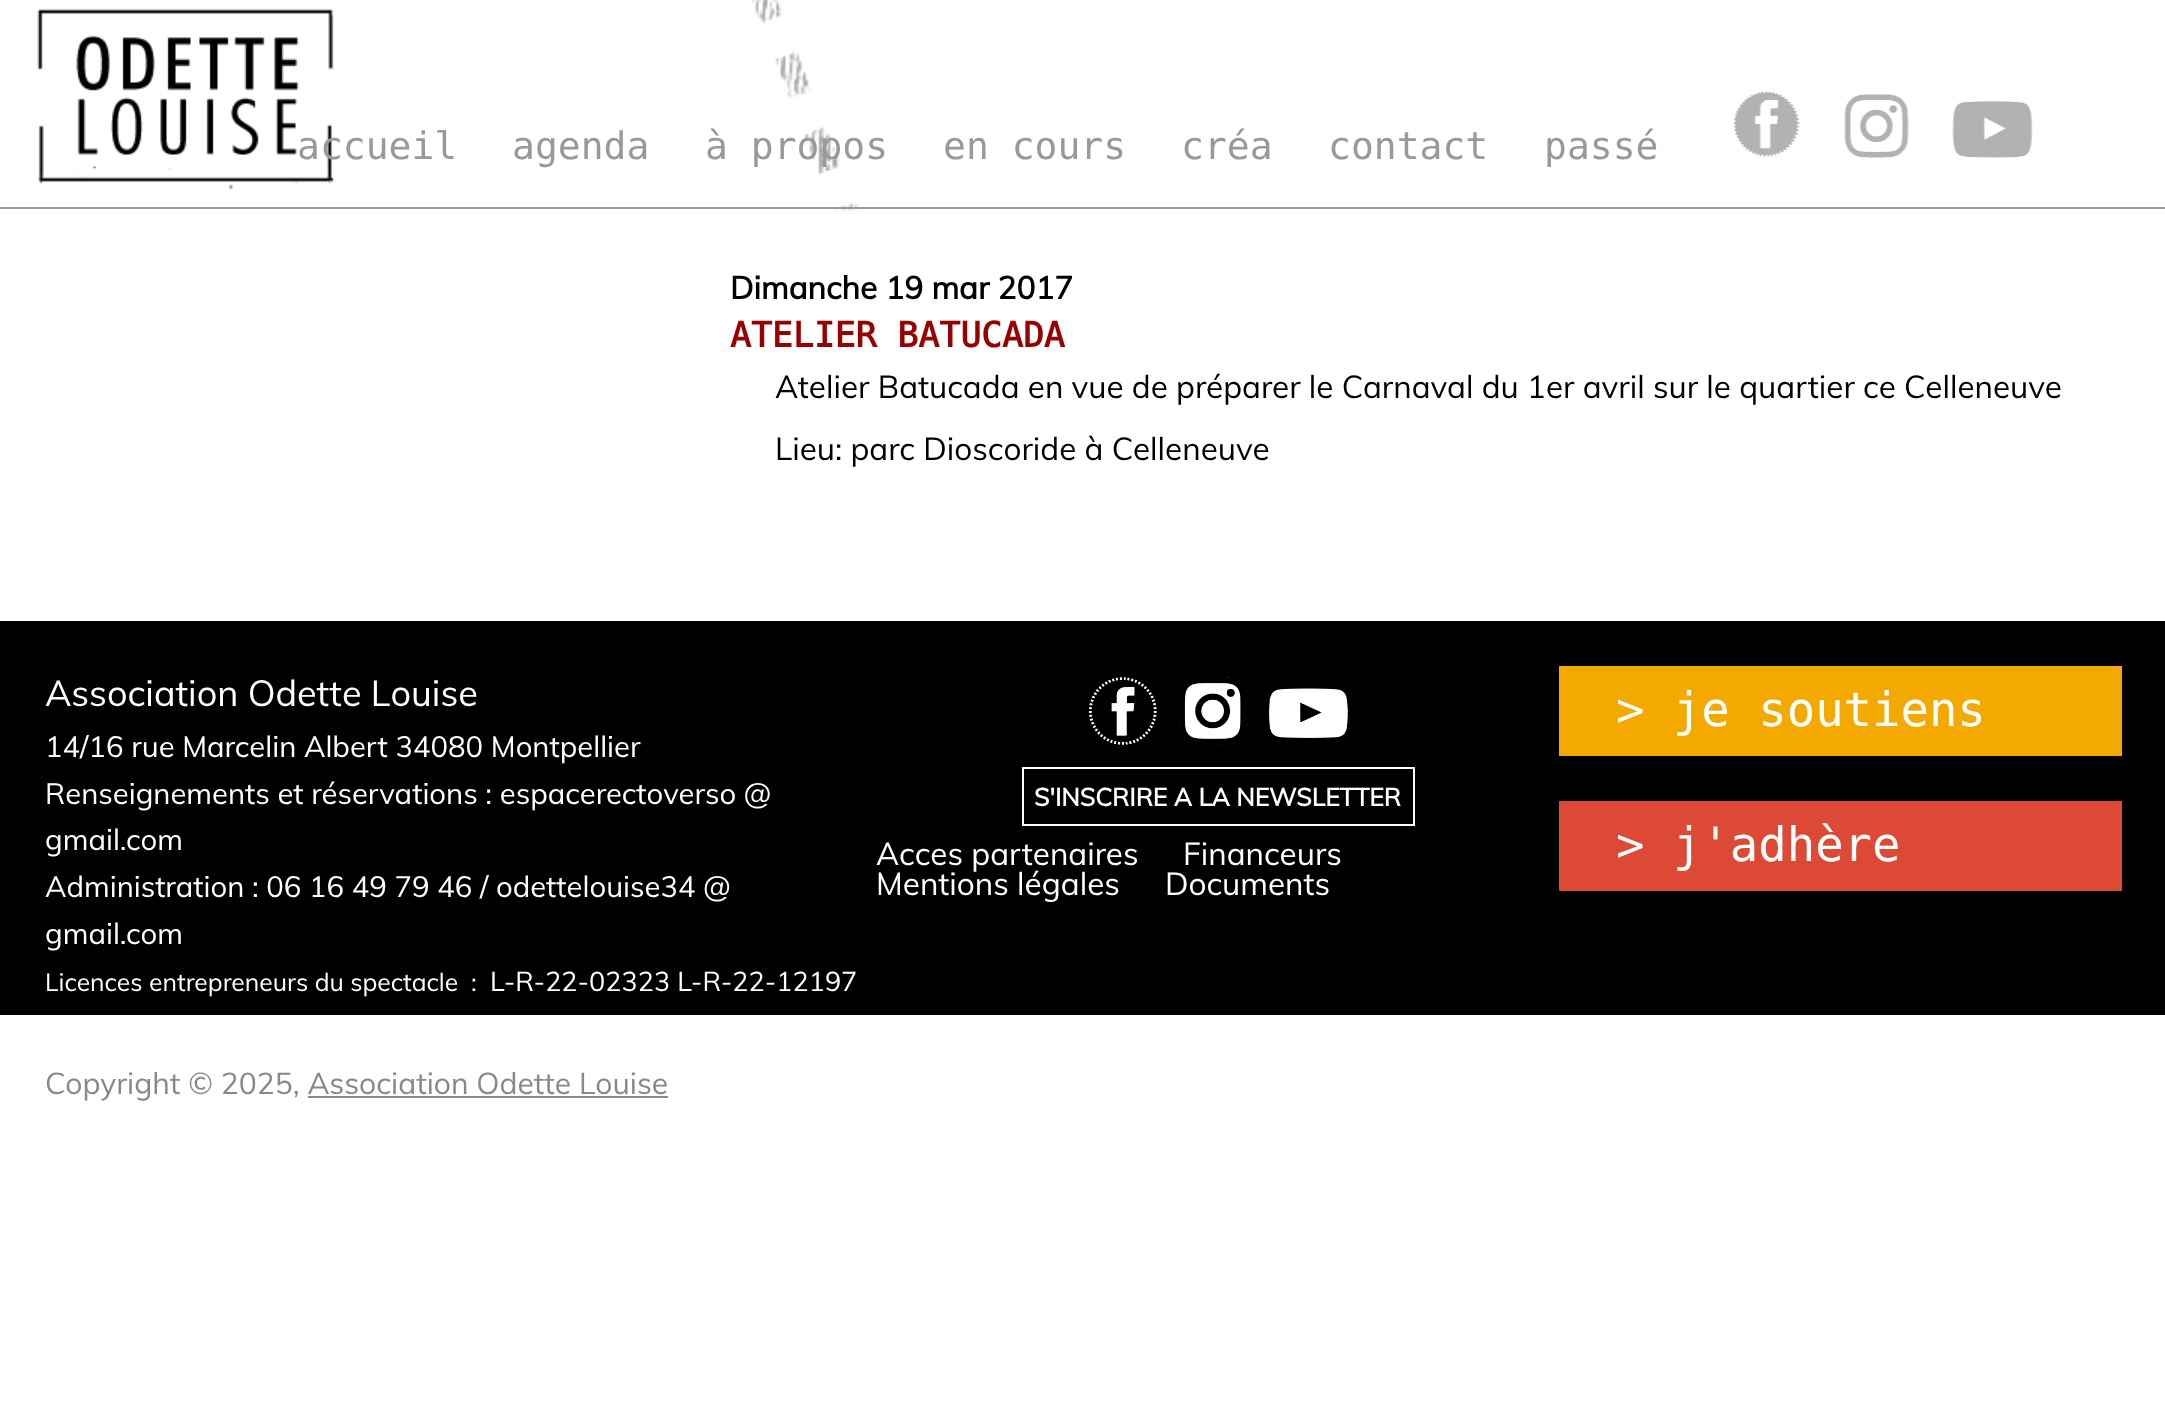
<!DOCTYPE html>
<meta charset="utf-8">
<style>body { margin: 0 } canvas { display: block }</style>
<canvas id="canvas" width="2165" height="1405"></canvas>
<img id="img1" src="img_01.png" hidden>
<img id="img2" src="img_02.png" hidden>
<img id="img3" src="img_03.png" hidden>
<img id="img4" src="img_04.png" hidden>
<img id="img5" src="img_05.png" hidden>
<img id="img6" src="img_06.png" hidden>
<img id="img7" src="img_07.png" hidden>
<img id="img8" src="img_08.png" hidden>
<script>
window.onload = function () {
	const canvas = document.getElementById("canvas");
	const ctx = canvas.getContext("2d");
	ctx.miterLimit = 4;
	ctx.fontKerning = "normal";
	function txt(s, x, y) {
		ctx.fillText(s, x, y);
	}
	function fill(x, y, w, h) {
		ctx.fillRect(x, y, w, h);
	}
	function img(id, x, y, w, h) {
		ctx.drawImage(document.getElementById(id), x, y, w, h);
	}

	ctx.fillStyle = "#FFFFFF";
	fill(0, 0, 2165, 1405);
	img("img1", 751, 0, 108, 212);
	ctx.fillStyle = "#999999";
	fill(0, 207, 2165, 2);
	img("img2", 37, 8, 297, 182);
	img("img3", 1733, 91, 67, 66);
	img("img4", 1844, 94, 65, 64);
	img("img5", 1952, 101, 81, 57);
	ctx.fillStyle = "#000000";
	fill(0, 621, 2165, 394);
	img("img6", 1089, 677, 68, 68);
	img("img7", 1179, 677, 68, 68);
	img("img8", 1269, 688, 79, 50);
	ctx.strokeStyle = "#FFFFFF";
	ctx.lineWidth = 2;
	ctx.strokeRect(1023, 768, 391, 57);
	ctx.fillStyle = "#F4A900";
	fill(1559, 666, 563, 90);
	ctx.fillStyle = "#DC4A35";
	fill(1559, 801, 563, 90);
	ctx.fillStyle = "#888888";
	fill(308, 1096, 360, 2);
	ctx.font = "38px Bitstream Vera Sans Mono";
	ctx.fillStyle = "#999999";
	txt("accueil", 297, 159);
	txt("agenda", 512, 159);
	txt("à propos", 705, 159);
	txt("en cours", 943, 159);
	txt("créa", 1181, 159);
	txt("contact", 1328, 159);
	txt("passé", 1544, 159);
	ctx.font = "bold 31.5px Muli";
	ctx.fillStyle = "#000000";
	txt("Dimanche 19 mar 2017", 730, 299);
	ctx.font = "bold 34.75px Bitstream Vera Sans Mono";
	ctx.fillStyle = "#990000";
	txt("ATELIER BATUCADA", 730, 347);
	ctx.font = "31.5px Muli";
	ctx.fillStyle = "#000000";
	txt("Atelier Batucada en vue de préparer le Carnaval du 1er avril sur le quartier ce Celleneuve", 775, 398);
	txt("Lieu: parc Dioscoride à Celleneuve", 775, 460);
	ctx.font = "36px Muli";
	ctx.fillStyle = "#FFFFFF";
	txt("Association Odette Louise", 45, 706);
	ctx.font = "29.25px Muli";
	txt("14/16 rue Marcelin Albert 34080 Montpellier", 45, 757);
	txt("Renseignements et réservations : espacerectoverso @", 45, 804);
	txt("gmail.com", 45, 850);
	txt("Administration : 06 16 49 79 46 / odettelouise34 @", 45, 897);
	txt("gmail.com", 45, 944);
	ctx.font = "24.75px Muli";
	txt("Licences entrepreneurs du spectacle  :", 45, 991);
	ctx.font = "27px Muli";
	txt("L-R-22-02323 L-R-22-12197", 490, 991);
	ctx.font = "bold 24.75px Muli";
	txt("S'INSCRIRE A LA NEWSLETTER", 1034, 806);
	ctx.font = "47.25px Bitstream Vera Sans Mono";
	txt("> je soutiens", 1616, 726);
	txt("> j'adhère", 1616, 861);
	ctx.font = "31.5px Muli";
	txt("Acces partenaires", 876, 865);
	txt("Financeurs", 1183, 865);
	txt("Mentions légales", 876, 895);
	txt("Documents", 1165, 895);
	ctx.font = "30px Muli";
	ctx.fillStyle = "#888888";
	txt("Copyright © 2025, Association Odette Louise", 45, 1094);
};
</script>
